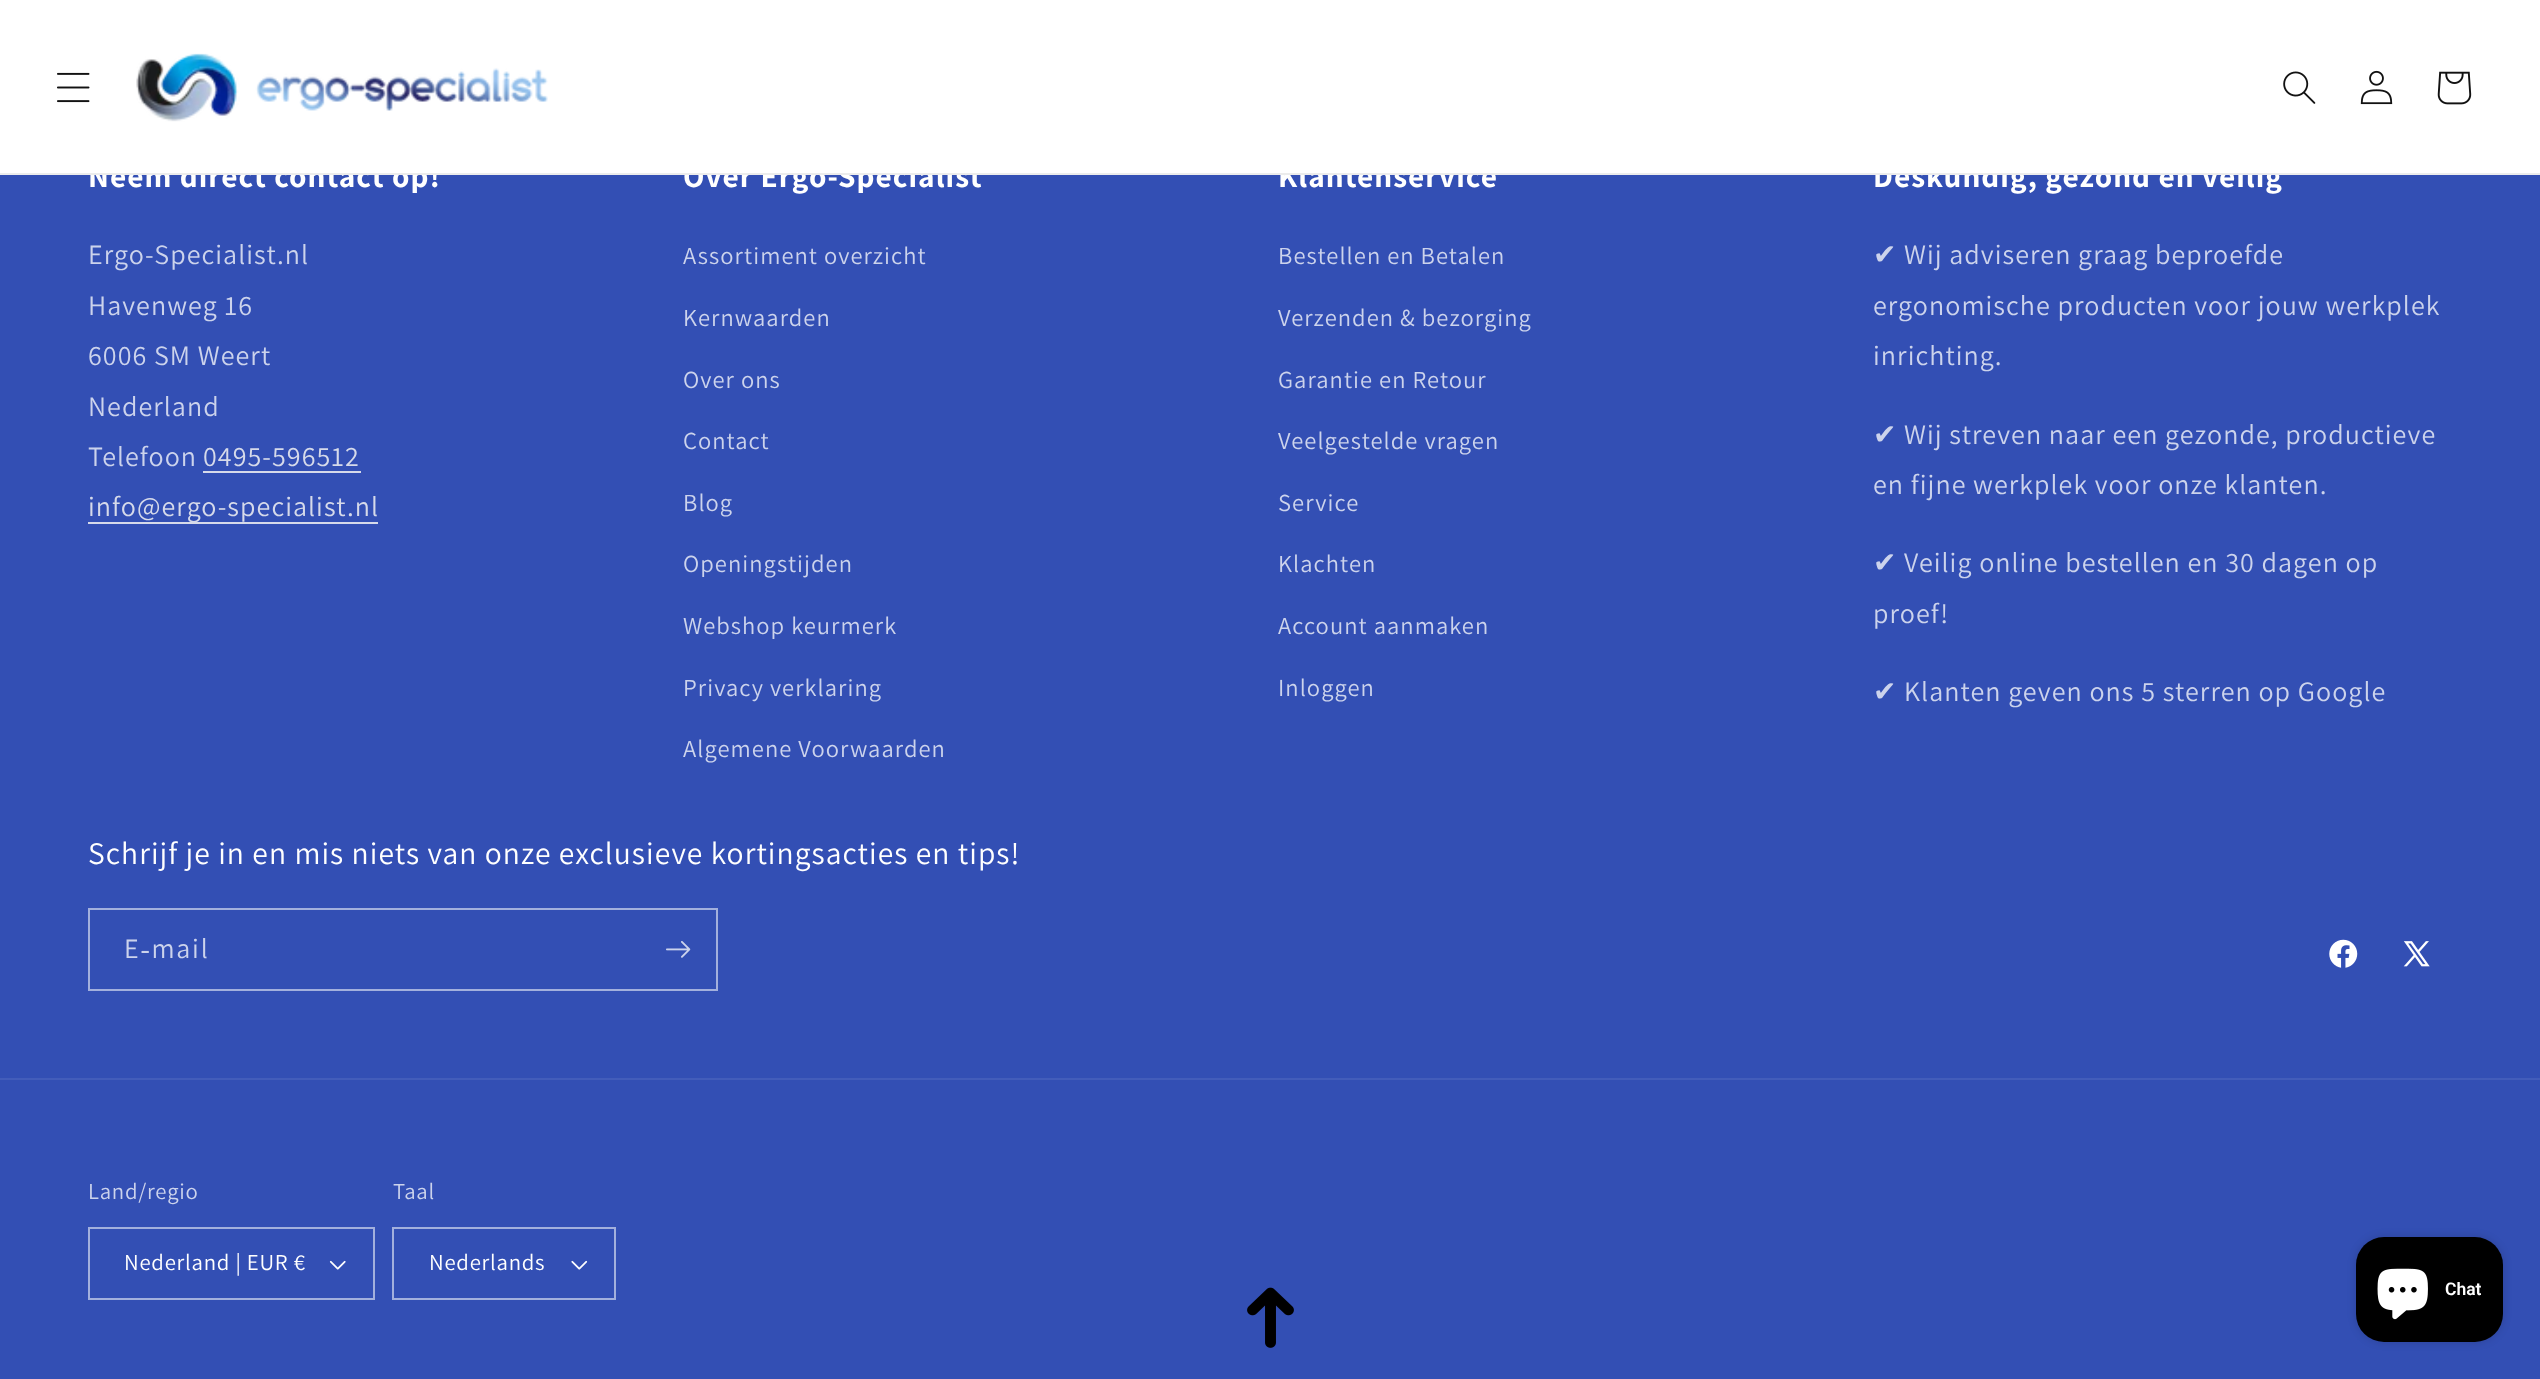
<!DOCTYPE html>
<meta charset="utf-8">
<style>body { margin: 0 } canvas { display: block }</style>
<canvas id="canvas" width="2540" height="1379"></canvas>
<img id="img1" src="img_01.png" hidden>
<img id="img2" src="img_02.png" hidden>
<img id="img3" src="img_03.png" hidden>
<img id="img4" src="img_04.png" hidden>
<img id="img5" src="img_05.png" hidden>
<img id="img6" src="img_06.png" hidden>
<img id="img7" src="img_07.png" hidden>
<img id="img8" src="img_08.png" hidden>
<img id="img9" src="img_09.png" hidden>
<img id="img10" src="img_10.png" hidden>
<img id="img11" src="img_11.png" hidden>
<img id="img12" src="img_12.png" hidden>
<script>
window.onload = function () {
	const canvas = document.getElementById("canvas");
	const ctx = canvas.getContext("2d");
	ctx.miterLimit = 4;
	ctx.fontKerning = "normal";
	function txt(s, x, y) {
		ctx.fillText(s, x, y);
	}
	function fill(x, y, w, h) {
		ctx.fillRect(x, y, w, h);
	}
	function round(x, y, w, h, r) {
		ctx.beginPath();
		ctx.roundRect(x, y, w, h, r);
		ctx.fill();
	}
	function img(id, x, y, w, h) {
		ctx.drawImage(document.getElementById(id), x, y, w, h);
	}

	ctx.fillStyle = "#334FB4";
	fill(0, 0, 2540, 1379);
	ctx.fillStyle = "#FFFFFF";
	fill(0, 0, 2540, 173);
	img("img1", 57, 72, 33, 31);
	img("img2", 136, 53, 412, 69);
	img("img3", 2283, 71, 33, 33);
	img("img4", 2360, 70, 33, 35);
	img("img5", 2437, 71, 35, 34);
	ctx.fillStyle = "#D6DAEA";
	fill(203, 471, 158, 2);
	fill(88, 522, 290, 2);
	ctx.strokeStyle = "#A3B0DD";
	ctx.lineWidth = 2;
	ctx.strokeRect(89, 909, 628, 81);
	img("img6", 666, 941, 25, 17);
	img("img7", 2329, 939, 29, 29);
	img("img8", 2403, 941, 27, 26);
	ctx.fillStyle = "#435DBA";
	fill(0, 1078, 2540, 2);
	img("img9", 329, 1260, 17, 10);
	ctx.strokeRect(89, 1228, 285, 71);
	img("img10", 571, 1260, 17, 10);
	ctx.strokeRect(393, 1228, 222, 71);
	img("img11", 1247, 1287, 47, 61);
	ctx.fillStyle = "rgba(0, 0, 0, 0.15)";
	ctx.filter = "blur(4.5px)";
	ctx.beginPath();
	ctx.roundRect(2356, 1237, 147, 105, 28);
	ctx.fill();
	ctx.filter = "none";
	ctx.fillStyle = "#000000";
	round(2356, 1237, 147, 105, 28);
	img("img12", 2377, 1268, 51, 52);
	ctx.letterSpacing = "1.05px";
	ctx.font = "bold 31.5px Assistant";
	ctx.fillStyle = "#FFFFFF";
	txt("Neem direct contact op!", 88, 187);
	ctx.font = "28px Assistant";
	ctx.fillStyle = "#CCD3EC";
	txt("Ergo-Specialist.nl", 88, 264);
	txt("Havenweg 16", 88, 315);
	txt("6006 SM Weert", 88, 365);
	txt("Nederland", 88, 416);
	txt("Telefoon", 88, 466);
	ctx.fillStyle = "#D6DAEA";
	txt("0495-596512", 203, 466);
	txt("info@ergo-specialist.nl", 88, 516);
	ctx.font = "bold 31.5px Assistant";
	ctx.fillStyle = "#FFFFFF";
	txt("Over Ergo-Specialist", 683, 187);
	ctx.font = "24.5px Assistant";
	ctx.fillStyle = "#CCD3EC";
	txt("Assortiment overzicht", 683, 264);
	txt("Kernwaarden", 683, 326);
	txt("Over ons", 683, 388);
	txt("Contact", 683, 449);
	txt("Blog", 683, 511);
	txt("Openingstijden", 683, 572);
	txt("Webshop keurmerk", 683, 634);
	txt("Privacy verklaring", 683, 696);
	txt("Algemene Voorwaarden", 683, 757);
	ctx.font = "bold 31.5px Assistant";
	ctx.fillStyle = "#FFFFFF";
	txt("Klantenservice", 1278, 187);
	ctx.font = "24.5px Assistant";
	ctx.fillStyle = "#CCD3EC";
	txt("Bestellen en Betalen", 1278, 264);
	txt("Verzenden & bezorging", 1278, 326);
	txt("Garantie en Retour", 1278, 388);
	txt("Veelgestelde vragen", 1278, 449);
	txt("Service", 1278, 511);
	txt("Klachten", 1278, 572);
	txt("Account aanmaken", 1278, 634);
	txt("Inloggen", 1278, 696);
	ctx.font = "bold 31.5px Assistant";
	ctx.fillStyle = "#FFFFFF";
	txt("Deskundig, gezond en veilig", 1873, 187);
	ctx.fillStyle = "#ECECEC";
	fill(0, 173, 2540, 2);
	ctx.font = "28px DejaVu Sans";
	ctx.fillStyle = "#CCD3EC";
	txt("✔", 1873, 264);
	ctx.font = "28px Assistant";
	txt("Wij adviseren graag beproefde", 1904, 264);
	txt("ergonomische producten voor jouw werkplek", 1873, 315);
	txt("inrichting.", 1873, 365);
	ctx.font = "28px DejaVu Sans";
	txt("✔", 1873, 444);
	ctx.font = "28px Assistant";
	txt("Wij streven naar een gezonde, productieve", 1904, 444);
	txt("en fijne werkplek voor onze klanten.", 1873, 494);
	ctx.font = "28px DejaVu Sans";
	txt("✔", 1873, 572);
	ctx.font = "28px Assistant";
	txt("Veilig online bestellen en 30 dagen op", 1904, 572);
	txt("proef!", 1873, 623);
	ctx.font = "28px DejaVu Sans";
	txt("✔", 1873, 701);
	ctx.font = "28px Assistant";
	txt("Klanten geven ons 5 sterren op Google", 1904, 701);
	ctx.font = "31.5px Assistant";
	ctx.fillStyle = "#FFFFFF";
	txt("Schrijf je in en mis niets van onze exclusieve kortingsacties en tips!", 88, 864);
	ctx.letterSpacing = "1.75px";
	ctx.font = "28px Assistant";
	ctx.fillStyle = "#CCD3EC";
	txt("E‑mail", 124, 958);
	ctx.letterSpacing = "0.75px";
	ctx.font = "22.75px Assistant";
	txt("Land/regio", 88, 1199);
	ctx.fillStyle = "#FFFFFF";
	txt("Nederland | EUR €", 124, 1270);
	ctx.fillStyle = "#CCD3EC";
	txt("Taal", 393, 1199);
	ctx.fillStyle = "#FFFFFF";
	txt("Nederlands", 429, 1270);
	ctx.letterSpacing = "0px";
	ctx.font = "600 17.5px Roboto";
	txt("Chat", 2445, 1295);
};
</script>
